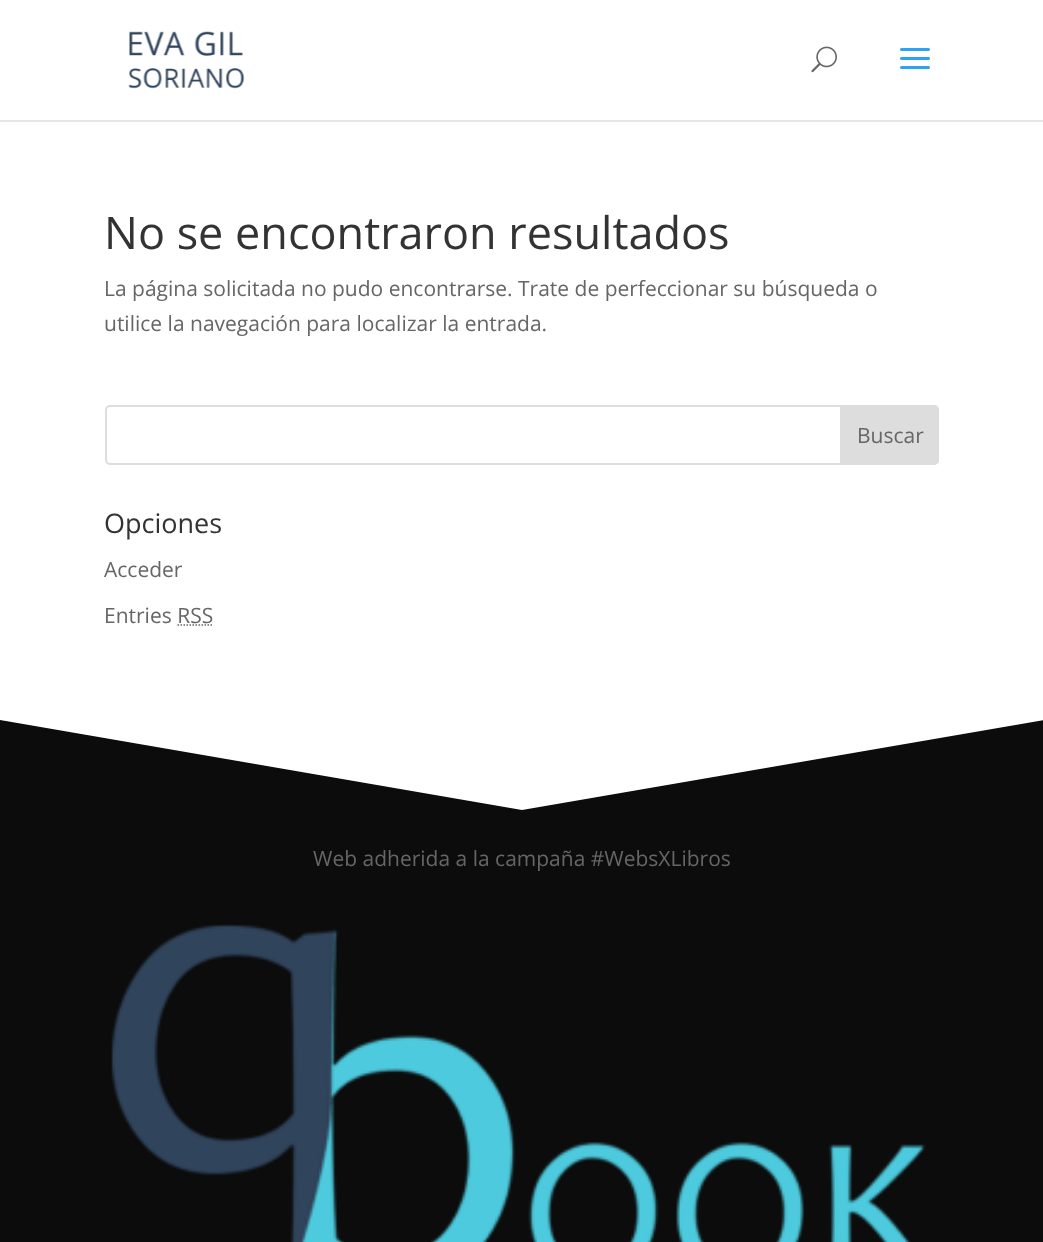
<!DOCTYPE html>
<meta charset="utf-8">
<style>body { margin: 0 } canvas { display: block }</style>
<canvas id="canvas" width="1043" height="1242"></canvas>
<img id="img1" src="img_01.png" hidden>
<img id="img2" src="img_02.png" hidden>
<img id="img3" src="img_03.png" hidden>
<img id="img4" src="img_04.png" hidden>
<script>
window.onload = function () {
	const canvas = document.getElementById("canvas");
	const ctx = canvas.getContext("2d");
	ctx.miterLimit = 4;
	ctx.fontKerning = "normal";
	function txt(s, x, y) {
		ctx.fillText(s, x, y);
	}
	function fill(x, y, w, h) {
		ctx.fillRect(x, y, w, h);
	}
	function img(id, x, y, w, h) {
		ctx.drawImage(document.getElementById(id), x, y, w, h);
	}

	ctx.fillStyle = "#FFFFFF";
	fill(0, 0, 1043, 1242);
	ctx.fillStyle = "#E6E6E6";
	fill(0, 120, 1043, 2);
	img("img1", 128, 31, 117, 58);
	img("img2", 811, 46, 26, 27);
	img("img3", 900, 48, 30, 21);
	ctx.beginPath();
	ctx.roundRect(106, 406, 832, 58, 4);
	ctx.strokeStyle = "#DDDDDD";
	ctx.lineWidth = 2;
	ctx.stroke();
	ctx.fillStyle = "#DDDDDD";
	ctx.beginPath();
	ctx.roundRect(841, 406, 97, 58, [0, 4, 4, 0]);
	ctx.fill();
	ctx.stroke();
	ctx.beginPath();
	ctx.moveTo(177.5, 625);
	ctx.lineTo(213.5, 625);
	ctx.strokeStyle = "#666666";
	ctx.lineWidth = 1.5;
	ctx.setLineDash([1.5, 1.5]);
	ctx.stroke();
	ctx.fillStyle = "#0C0C0C";
	fill(0, 720, 1043, 522);
	ctx.fillStyle = "#FFFFFF";
	ctx.beginPath();
	ctx.moveTo(522, 810);
	ctx.lineTo(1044, 720);
	ctx.lineTo(0, 720);
	ctx.closePath();
	ctx.fill();
	img("img4", 111, 924, 815, 318);
	ctx.font = "45px Open Sans";
	ctx.fillStyle = "#333333";
	txt("No se encontraron resultados", 104, 249);
	ctx.font = "21px Open Sans";
	ctx.fillStyle = "#666666";
	txt("La página solicitada no pudo encontrarse. Trate de perfeccionar su búsqueda o", 104, 296);
	txt("utilice la navegación para localizar la entrada.", 104, 331);
	txt("Buscar", 857, 443);
	ctx.font = "27px Open Sans";
	ctx.fillStyle = "#333333";
	txt("Opciones", 104, 533);
	ctx.font = "21px Open Sans";
	ctx.fillStyle = "#666666";
	txt("Acceder", 104, 577);
	txt("Entries RSS", 104, 623);
	txt("Web adherida a la campaña #WebsXLibros", 313, 866);
};
</script>
